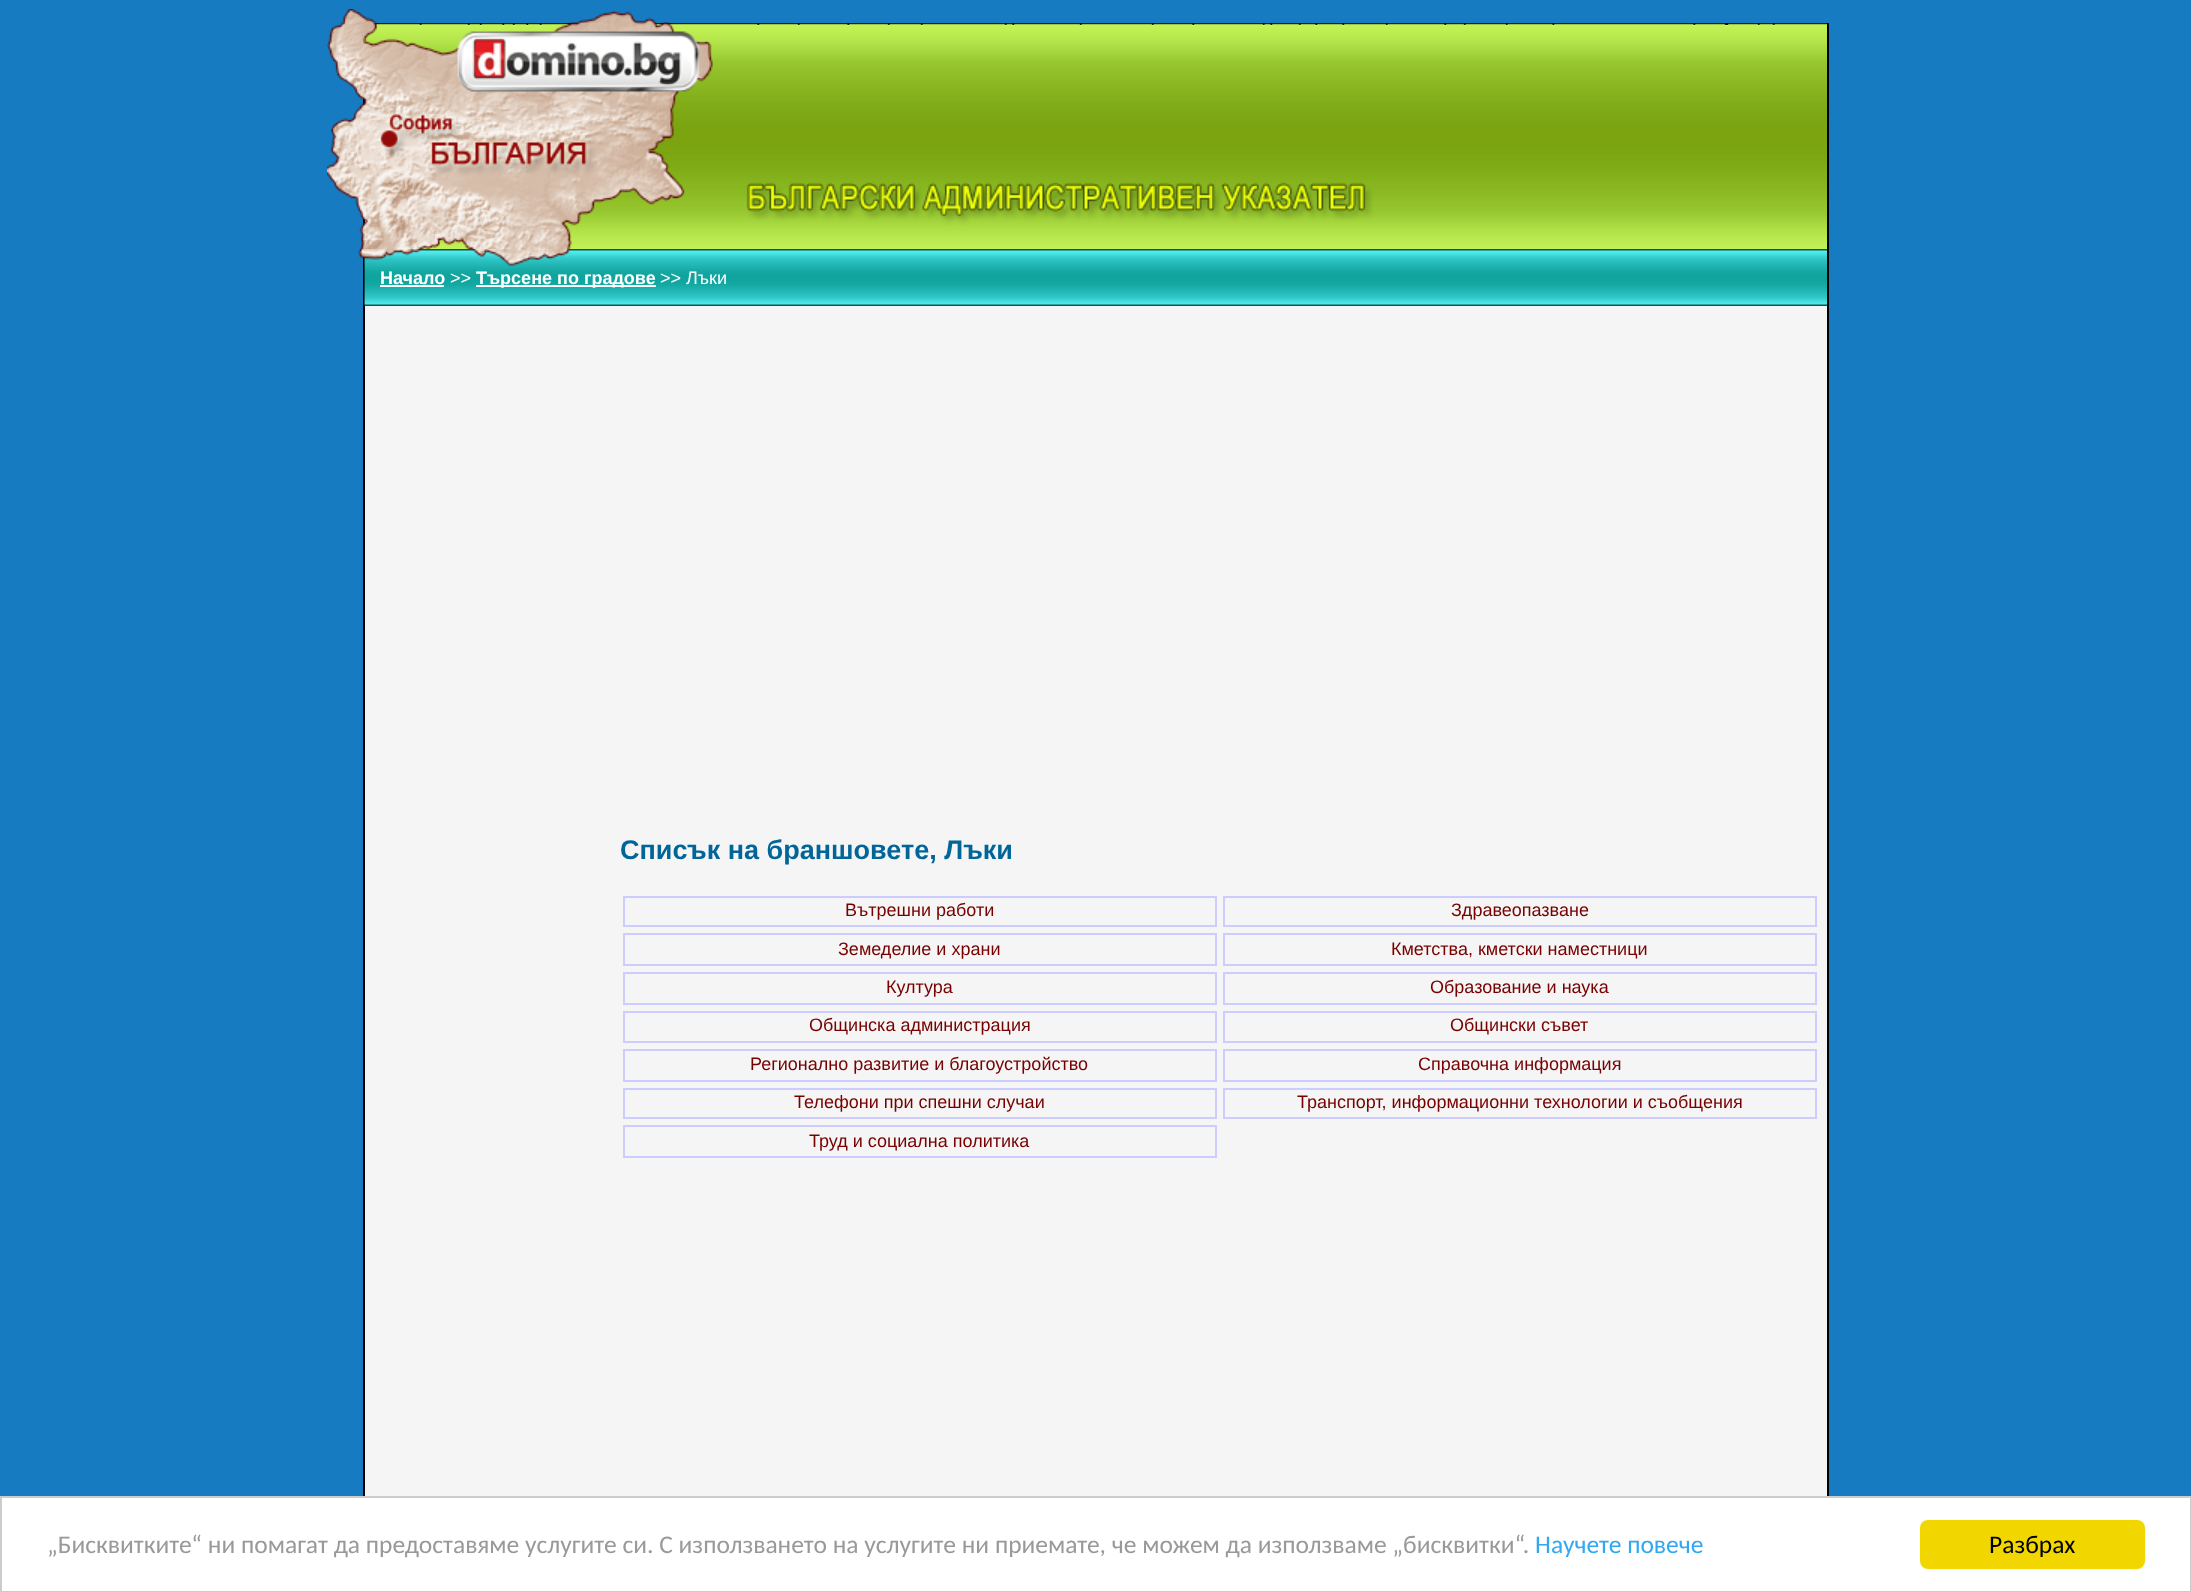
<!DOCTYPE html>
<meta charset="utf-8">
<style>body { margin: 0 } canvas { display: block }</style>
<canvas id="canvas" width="2191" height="1592"></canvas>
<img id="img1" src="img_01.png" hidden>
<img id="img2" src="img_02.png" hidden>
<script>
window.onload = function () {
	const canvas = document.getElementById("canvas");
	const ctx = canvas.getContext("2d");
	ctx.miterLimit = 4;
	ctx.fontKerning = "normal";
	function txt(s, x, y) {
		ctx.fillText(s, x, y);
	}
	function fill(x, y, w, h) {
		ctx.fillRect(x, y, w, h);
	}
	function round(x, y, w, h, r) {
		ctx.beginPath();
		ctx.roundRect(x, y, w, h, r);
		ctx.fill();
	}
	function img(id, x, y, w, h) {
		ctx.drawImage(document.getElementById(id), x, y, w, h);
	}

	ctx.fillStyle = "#177BC1";
	fill(0, 0, 2191, 1592);
	ctx.fillStyle = "#F5F5F5";
	fill(365, 25, 1462, 1471);
	ctx.strokeStyle = "#000000";
	ctx.lineWidth = 2;
	ctx.strokeRect(364, 24, 1464, 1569);
	img("img1", 327, 9, 1500, 240);
	img("img2", 358, 249, 1469, 57);
	ctx.fillStyle = "#FFFFFF";
	fill(380, 285, 64, 2);
	fill(476, 285, 180, 2);
	ctx.strokeStyle = "#CCCCFF";
	ctx.strokeRect(624, 897, 592, 29);
	ctx.strokeRect(1224, 897, 592, 29);
	ctx.strokeRect(624, 934, 592, 31);
	ctx.strokeRect(1224, 934, 592, 31);
	ctx.strokeRect(624, 973, 592, 31);
	ctx.strokeRect(1224, 973, 592, 31);
	ctx.strokeRect(624, 1012, 592, 30);
	ctx.strokeRect(1224, 1012, 592, 30);
	ctx.strokeRect(624, 1050, 592, 31);
	ctx.strokeRect(1224, 1050, 592, 31);
	ctx.strokeRect(624, 1089, 592, 29);
	ctx.strokeRect(1224, 1089, 592, 29);
	ctx.strokeRect(624, 1126, 592, 31);
	ctx.beginPath();
	ctx.rect(1, 1497, 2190, 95);
	ctx.fill();
	ctx.strokeStyle = "#CCCCCC";
	ctx.stroke();
	ctx.fillStyle = "#F1D600";
	round(1920, 1520, 225, 49, 8);
	ctx.font = "bold 18px Liberation Sans";
	ctx.fillStyle = "#FFFFFF";
	txt("Начало", 380, 284);
	ctx.font = "18px Liberation Sans";
	txt(">>", 450, 284);
	ctx.font = "bold 18px Liberation Sans";
	txt("Търсене по градове", 476, 284);
	ctx.font = "18px Liberation Sans";
	txt(">> Лъки", 660, 284);
	ctx.font = "bold 27px Liberation Sans";
	ctx.fillStyle = "#006699";
	txt("Списък на браншовете, Лъки", 620, 859);
	ctx.font = "18px Liberation Sans";
	ctx.fillStyle = "#770000";
	txt("Вътрешни работи", 845, 916);
	txt("Здравеопазване", 1451, 916);
	txt("Земеделие и храни", 838, 955);
	txt("Кметства, кметски наместници", 1391, 955);
	txt("Култура", 886, 993);
	txt("Образование и наука", 1430, 993);
	txt("Общинска администрация", 809, 1031);
	txt("Общински съвет", 1450, 1031);
	txt("Регионално развитие и благоустройство", 750, 1070);
	txt("Справочна информация", 1418, 1070);
	txt("Телефони при спешни случаи", 794, 1108);
	txt("Транспорт, информационни технологии и съобщения", 1297, 1108);
	txt("Труд и социална политика", 809, 1147);
	ctx.font = "25.5px Carlito";
	ctx.fillStyle = "#999999";
	txt("„Бисквитките“ ни помагат да предоставяме услугите си. С използването на услугите ни приемате, че можем да използваме „бисквитки“.", 47, 1553);
	ctx.fillStyle = "#31A8F0";
	txt("Научете повече", 1535, 1553);
	ctx.fillStyle = "#000000";
	txt("Разбрах", 1989, 1553);
};
</script>
